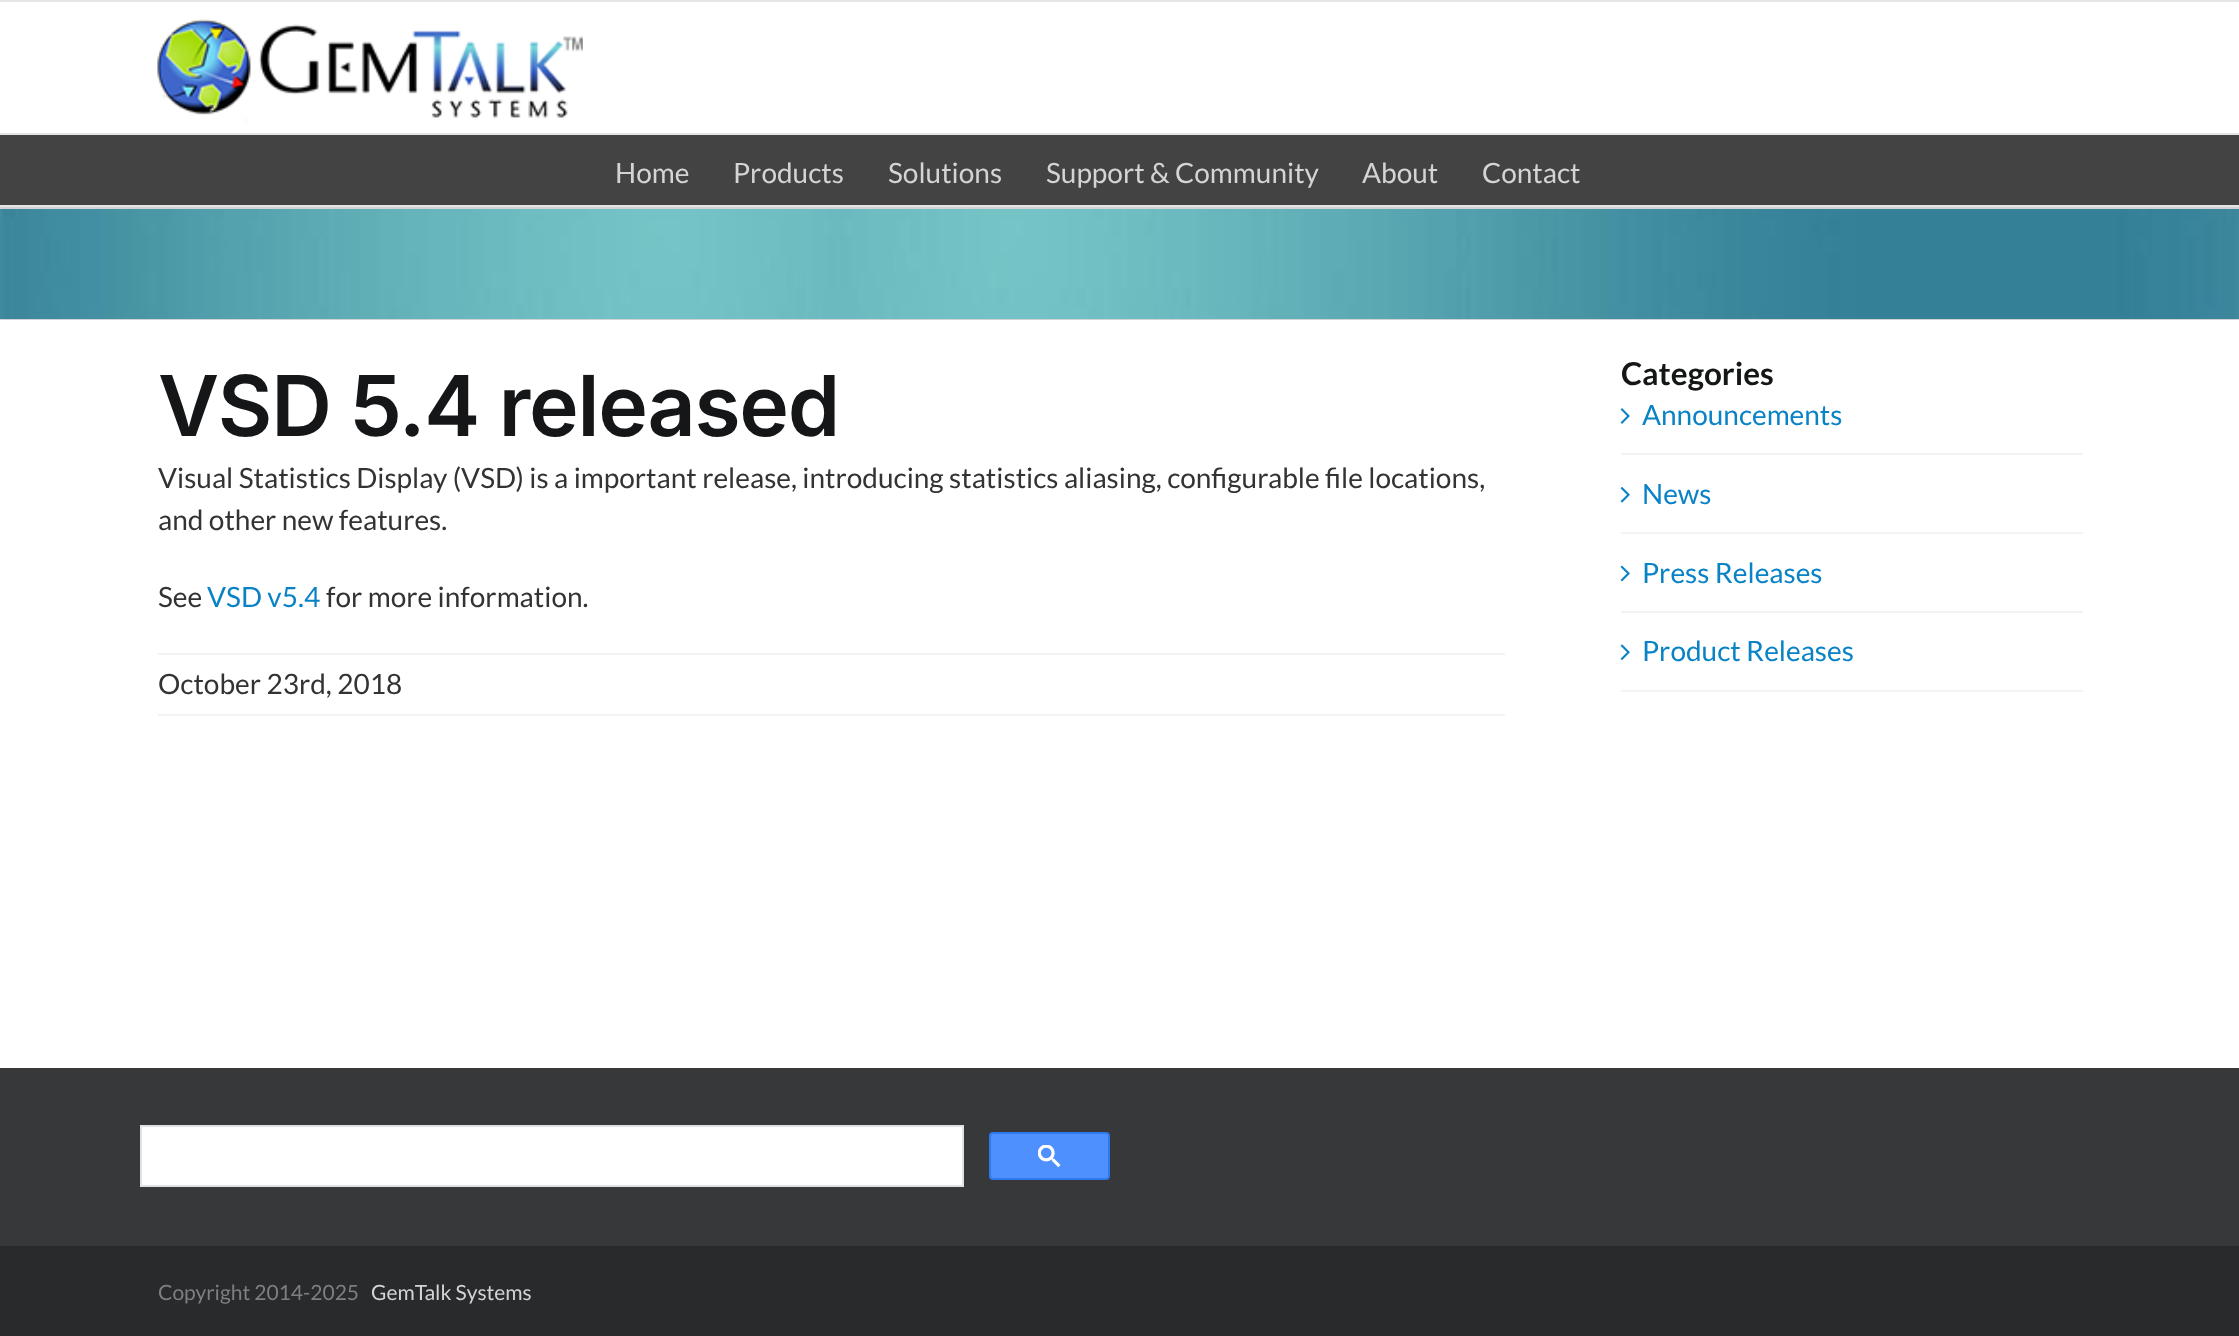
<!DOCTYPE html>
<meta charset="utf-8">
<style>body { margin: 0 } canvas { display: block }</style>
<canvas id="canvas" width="2239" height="1336"></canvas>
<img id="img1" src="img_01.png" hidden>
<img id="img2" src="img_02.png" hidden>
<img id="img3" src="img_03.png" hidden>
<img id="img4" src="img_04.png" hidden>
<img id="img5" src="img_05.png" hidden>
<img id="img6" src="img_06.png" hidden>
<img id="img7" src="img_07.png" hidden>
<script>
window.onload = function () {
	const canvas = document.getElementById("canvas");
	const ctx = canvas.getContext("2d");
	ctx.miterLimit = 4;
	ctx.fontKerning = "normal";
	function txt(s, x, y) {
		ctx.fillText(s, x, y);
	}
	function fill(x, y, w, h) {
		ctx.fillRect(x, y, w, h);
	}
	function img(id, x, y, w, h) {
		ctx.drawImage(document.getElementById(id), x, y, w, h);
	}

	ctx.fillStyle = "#FFFFFF";
	fill(0, 0, 2239, 1336);
	ctx.fillStyle = "#E5E5E5";
	fill(0, 0, 2239, 2);
	fill(0, 133, 2239, 2);
	img("img1", 157, 19, 426, 105);
	ctx.fillStyle = "#434343";
	fill(0, 135, 2239, 70);
	ctx.fillStyle = "#E5E5E5";
	fill(0, 205, 2239, 2);
	img("img2", 0, 209, 2239, 110);
	ctx.fillStyle = "#D2D3D4";
	fill(0, 207, 2239, 2);
	fill(0, 319, 2239, 1);
	ctx.fillStyle = "#F2F3F5";
	fill(158, 653, 1347, 2);
	fill(158, 714, 1347, 2);
	fill(1621, 453, 462, 2);
	img("img3", 1620, 408, 10, 16);
	fill(1621, 532, 462, 2);
	img("img4", 1620, 487, 10, 16);
	fill(1621, 611, 462, 2);
	img("img5", 1620, 565, 10, 17);
	fill(1621, 690, 462, 2);
	img("img6", 1620, 644, 10, 16);
	ctx.fillStyle = "#363839";
	fill(0, 1068, 2239, 178);
	ctx.fillStyle = "#FFFFFF";
	ctx.beginPath();
	ctx.rect(141, 1126, 822, 60);
	ctx.fill();
	ctx.strokeStyle = "#DFE1E5";
	ctx.lineWidth = 2;
	ctx.stroke();
	ctx.fillStyle = "#4D90FE";
	ctx.beginPath();
	ctx.roundRect(990, 1133, 119, 46, 3);
	ctx.fill();
	ctx.strokeStyle = "#3079ED";
	ctx.stroke();
	img("img7", 1038, 1145, 23, 22);
	ctx.fillStyle = "#282A2B";
	fill(0, 1246, 2239, 90);
	ctx.font = "28px Lato";
	ctx.fillStyle = "#D4D4D5";
	txt("Home", 615, 183);
	txt("Products", 733, 183);
	txt("Solutions", 888, 183);
	txt("Support & Community", 1046, 183);
	txt("About", 1362, 183);
	txt("Contact", 1482, 183);
	ctx.letterSpacing = "-1.25px";
	ctx.font = "600 84px Inter";
	ctx.fillStyle = "#141617";
	txt("VSD 5.4 released", 158, 436);
	ctx.letterSpacing = "0px";
	ctx.font = "28px Lato";
	ctx.fillStyle = "#333333";
	txt("Visual Statistics Display (VSD) is a important release, introducing statistics aliasing, configurable file locations,", 158, 488);
	txt("and other new features.", 158, 530);
	txt("See", 158, 607);
	ctx.fillStyle = "#0982C6";
	txt("VSD v5.4", 207, 607);
	ctx.fillStyle = "#333333";
	txt("for more information.", 326, 607);
	txt("October 23rd, 2018", 158, 694);
	ctx.font = "bold 31.5px Lato";
	ctx.fillStyle = "#141617";
	txt("Categories", 1621, 385);
	ctx.font = "28px Lato";
	ctx.fillStyle = "#0982C6";
	txt("Announcements", 1642, 425);
	txt("News", 1642, 504);
	txt("Press Releases", 1642, 583);
	txt("Product Releases", 1642, 661);
	ctx.font = "21px Lato";
	ctx.fillStyle = "#7E7F80";
	txt("Copyright 2014-2025", 158, 1300);
	ctx.fillStyle = "#D4D4D5";
	txt("GemTalk Systems", 371, 1300);
};
</script>
